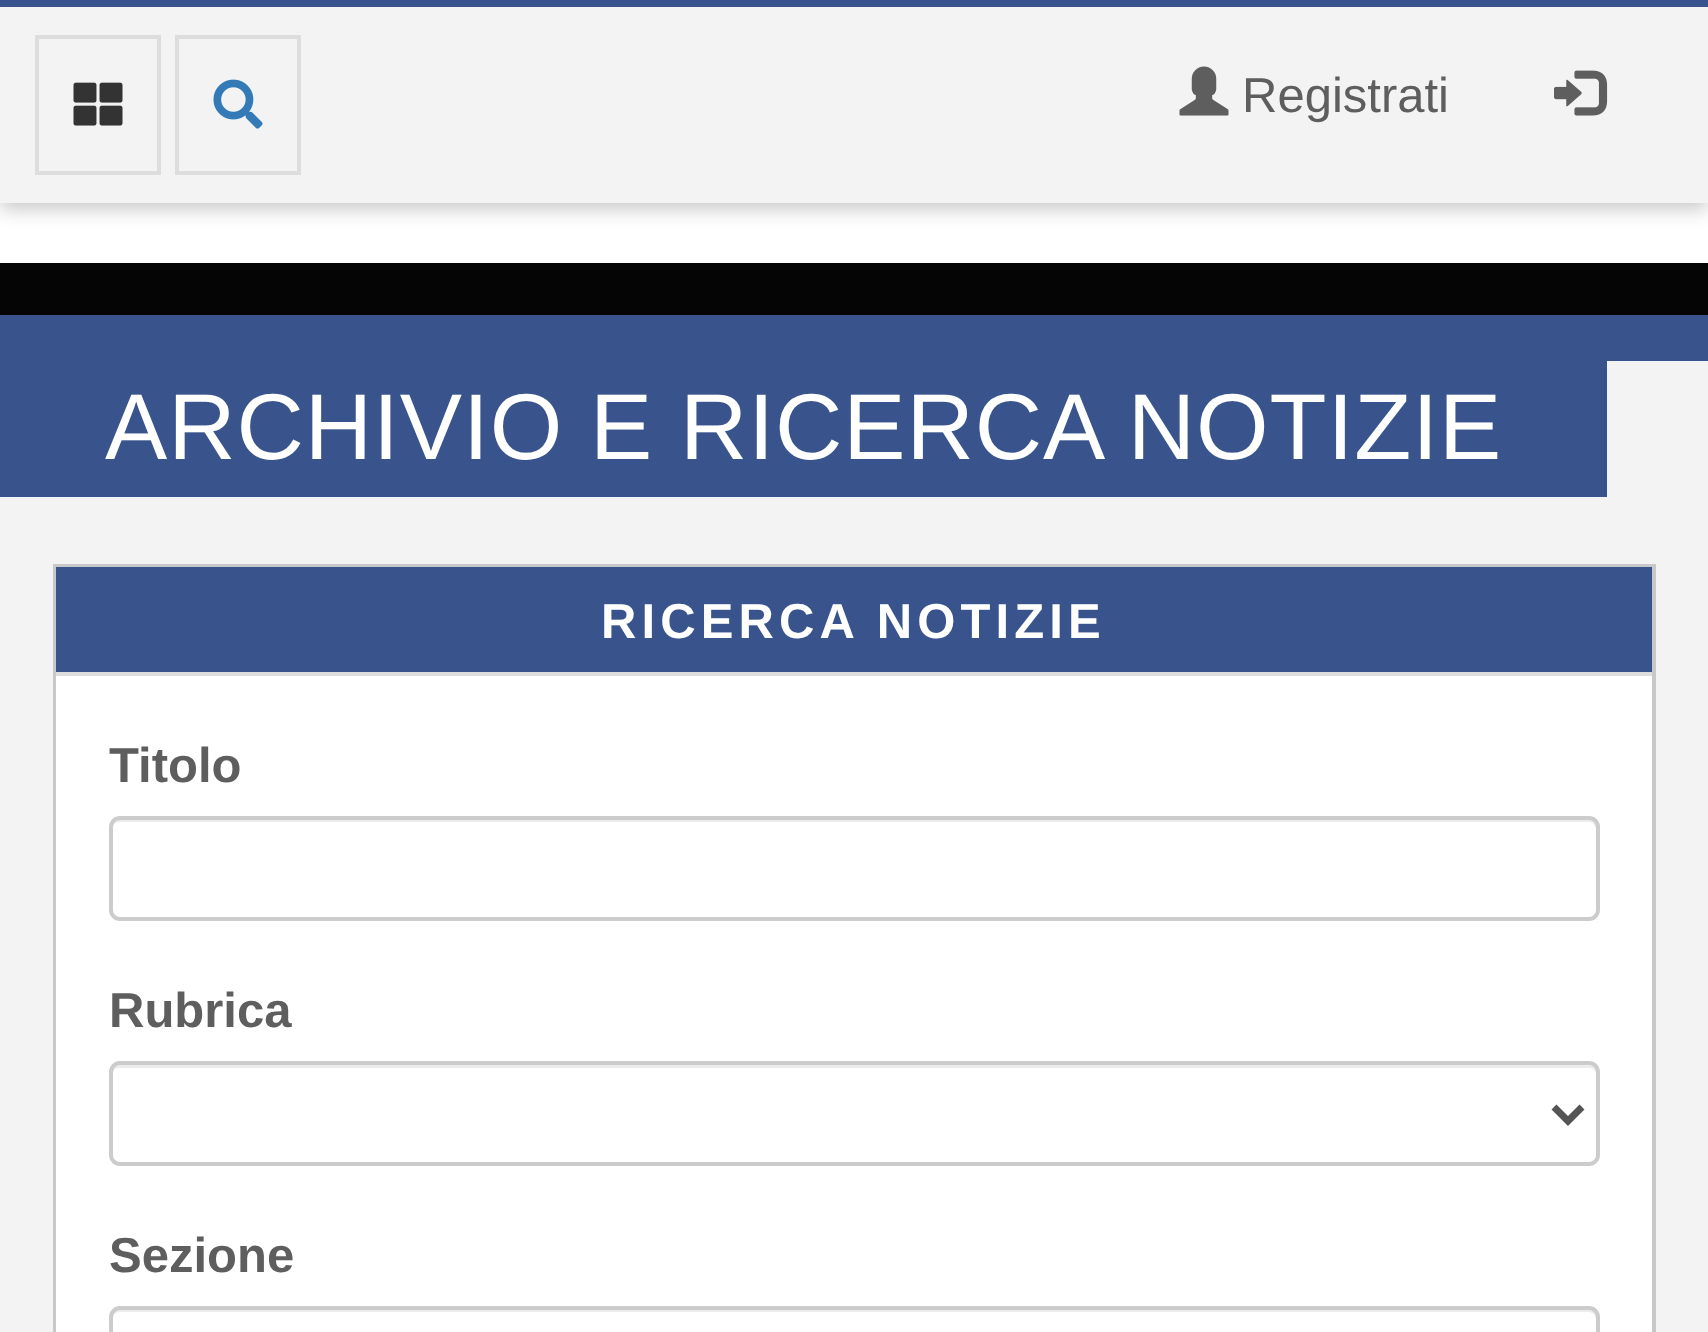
<!DOCTYPE html>
<meta charset="utf-8">
<style>body { margin: 0 } canvas { display: block }</style>
<canvas id="canvas" width="1708" height="1332"></canvas>
<img id="img1" src="img_01.png" hidden>
<img id="img2" src="img_02.png" hidden>
<img id="img3" src="img_03.png" hidden>
<img id="img4" src="img_04.png" hidden>
<script>
window.onload = function () {
	const canvas = document.getElementById("canvas");
	const ctx = canvas.getContext("2d");
	ctx.miterLimit = 4;
	ctx.fontKerning = "normal";
	function txt(s, x, y) {
		ctx.fillText(s, x, y);
	}
	function fill(x, y, w, h) {
		ctx.fillRect(x, y, w, h);
	}
	function img(id, x, y, w, h) {
		ctx.drawImage(document.getElementById(id), x, y, w, h);
	}

	ctx.fillStyle = "#FFFFFF";
	fill(0, 0, 1708, 1332);
	ctx.fillStyle = "rgba(0, 0, 0, 0.2)";
	ctx.filter = "blur(9px)";
	ctx.beginPath();
	ctx.rect(0, 7, 1708, 203);
	ctx.fill();
	ctx.filter = "none";
	ctx.fillStyle = "#F3F3F3";
	fill(0, 7, 1708, 196);
	ctx.fillStyle = "#39548D";
	fill(0, 0, 1708, 7);
	ctx.strokeStyle = "#DDDDDD";
	ctx.lineWidth = 4;
	ctx.strokeRect(37, 37, 122, 136);
	img("img1", 73, 82, 50, 44);
	ctx.strokeRect(177, 37, 122, 136);
	img("img2", 213, 79, 50, 50);
	img("img3", 1179, 66, 50, 50);
	img("img4", 1554, 70, 54, 46);
	ctx.fillStyle = "#050505";
	fill(0, 263, 1708, 52);
	ctx.fillStyle = "#39548D";
	fill(0, 315, 1708, 46);
	ctx.fillStyle = "#F3F3F3";
	fill(0, 361, 1708, 971);
	ctx.fillStyle = "#39548D";
	fill(0, 361, 1607, 136);
	ctx.strokeStyle = "#C8C8C8";
	ctx.strokeRect(55, 566, 1599, 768);
	fill(56, 567, 1596, 105);
	ctx.fillStyle = "#DDDDDD";
	fill(56, 672, 1596, 4);
	ctx.fillStyle = "#FFFFFF";
	fill(56, 676, 1596, 656);
	ctx.fillStyle = "#ECECEC";
	ctx.beginPath();
	ctx.moveTo(119, 822);
	ctx.lineTo(1589, 822);
	ctx.bezierCurveTo(1593, 822, 1596, 826, 1596, 830);
	ctx.lineTo(1596, 826);
	ctx.bezierCurveTo(1596, 822, 1593, 819, 1589, 819);
	ctx.lineTo(119, 819);
	ctx.bezierCurveTo(115, 819, 112, 822, 112, 826);
	ctx.lineTo(112, 830);
	ctx.bezierCurveTo(112, 826, 115, 822, 119, 822);
	ctx.closePath();
	ctx.fill();
	ctx.beginPath();
	ctx.roundRect(111, 818, 1487, 101, 9);
	ctx.strokeStyle = "#CCCCCC";
	ctx.stroke();
	ctx.beginPath();
	ctx.moveTo(119, 1068);
	ctx.lineTo(1589, 1068);
	ctx.bezierCurveTo(1593, 1068, 1596, 1071, 1596, 1074);
	ctx.lineTo(1596, 1071);
	ctx.bezierCurveTo(1596, 1067, 1593, 1064, 1589, 1064);
	ctx.lineTo(119, 1064);
	ctx.bezierCurveTo(115, 1064, 112, 1067, 112, 1071);
	ctx.lineTo(112, 1074);
	ctx.bezierCurveTo(112, 1071, 115, 1068, 119, 1068);
	ctx.closePath();
	ctx.fill();
	ctx.beginPath();
	ctx.roundRect(111, 1063, 1487, 101, 9);
	ctx.stroke();
	ctx.beginPath();
	ctx.moveTo(1554, 1107);
	ctx.lineTo(1568, 1121);
	ctx.lineTo(1582, 1107);
	ctx.strokeStyle = "#555555";
	ctx.lineWidth = 7;
	ctx.stroke();
	ctx.beginPath();
	ctx.moveTo(119, 1312);
	ctx.lineTo(1589, 1312);
	ctx.bezierCurveTo(1593, 1312, 1596, 1316, 1596, 1320);
	ctx.lineTo(1596, 1316);
	ctx.bezierCurveTo(1596, 1312, 1593, 1309, 1589, 1309);
	ctx.lineTo(119, 1309);
	ctx.bezierCurveTo(115, 1309, 112, 1312, 112, 1316);
	ctx.lineTo(112, 1320);
	ctx.bezierCurveTo(112, 1316, 115, 1312, 119, 1312);
	ctx.closePath();
	ctx.fill();
	ctx.beginPath();
	ctx.roundRect(111, 1308, 1487, 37, 9);
	ctx.strokeStyle = "#CCCCCC";
	ctx.lineWidth = 4;
	ctx.stroke();
	ctx.font = "49px Liberation Sans";
	ctx.fillStyle = "#5E5E5E";
	txt("Registrati", 1242, 112);
	ctx.letterSpacing = "0.9px";
	ctx.font = "93.3px Liberation Sans";
	ctx.fillStyle = "#FFFFFF";
	txt("ARCHIVIO E RICERCA NOTIZIE", 105, 459);
	ctx.letterSpacing = "5.1px";
	ctx.font = "bold 49px Liberation Sans";
	txt("RICERCA NOTIZIE", 601, 638);
	ctx.letterSpacing = "0px";
	ctx.fillStyle = "#5E5E5E";
	txt("Titolo", 109, 782);
	txt("Rubrica", 109, 1027);
	txt("Sezione", 109, 1272);
};
</script>
